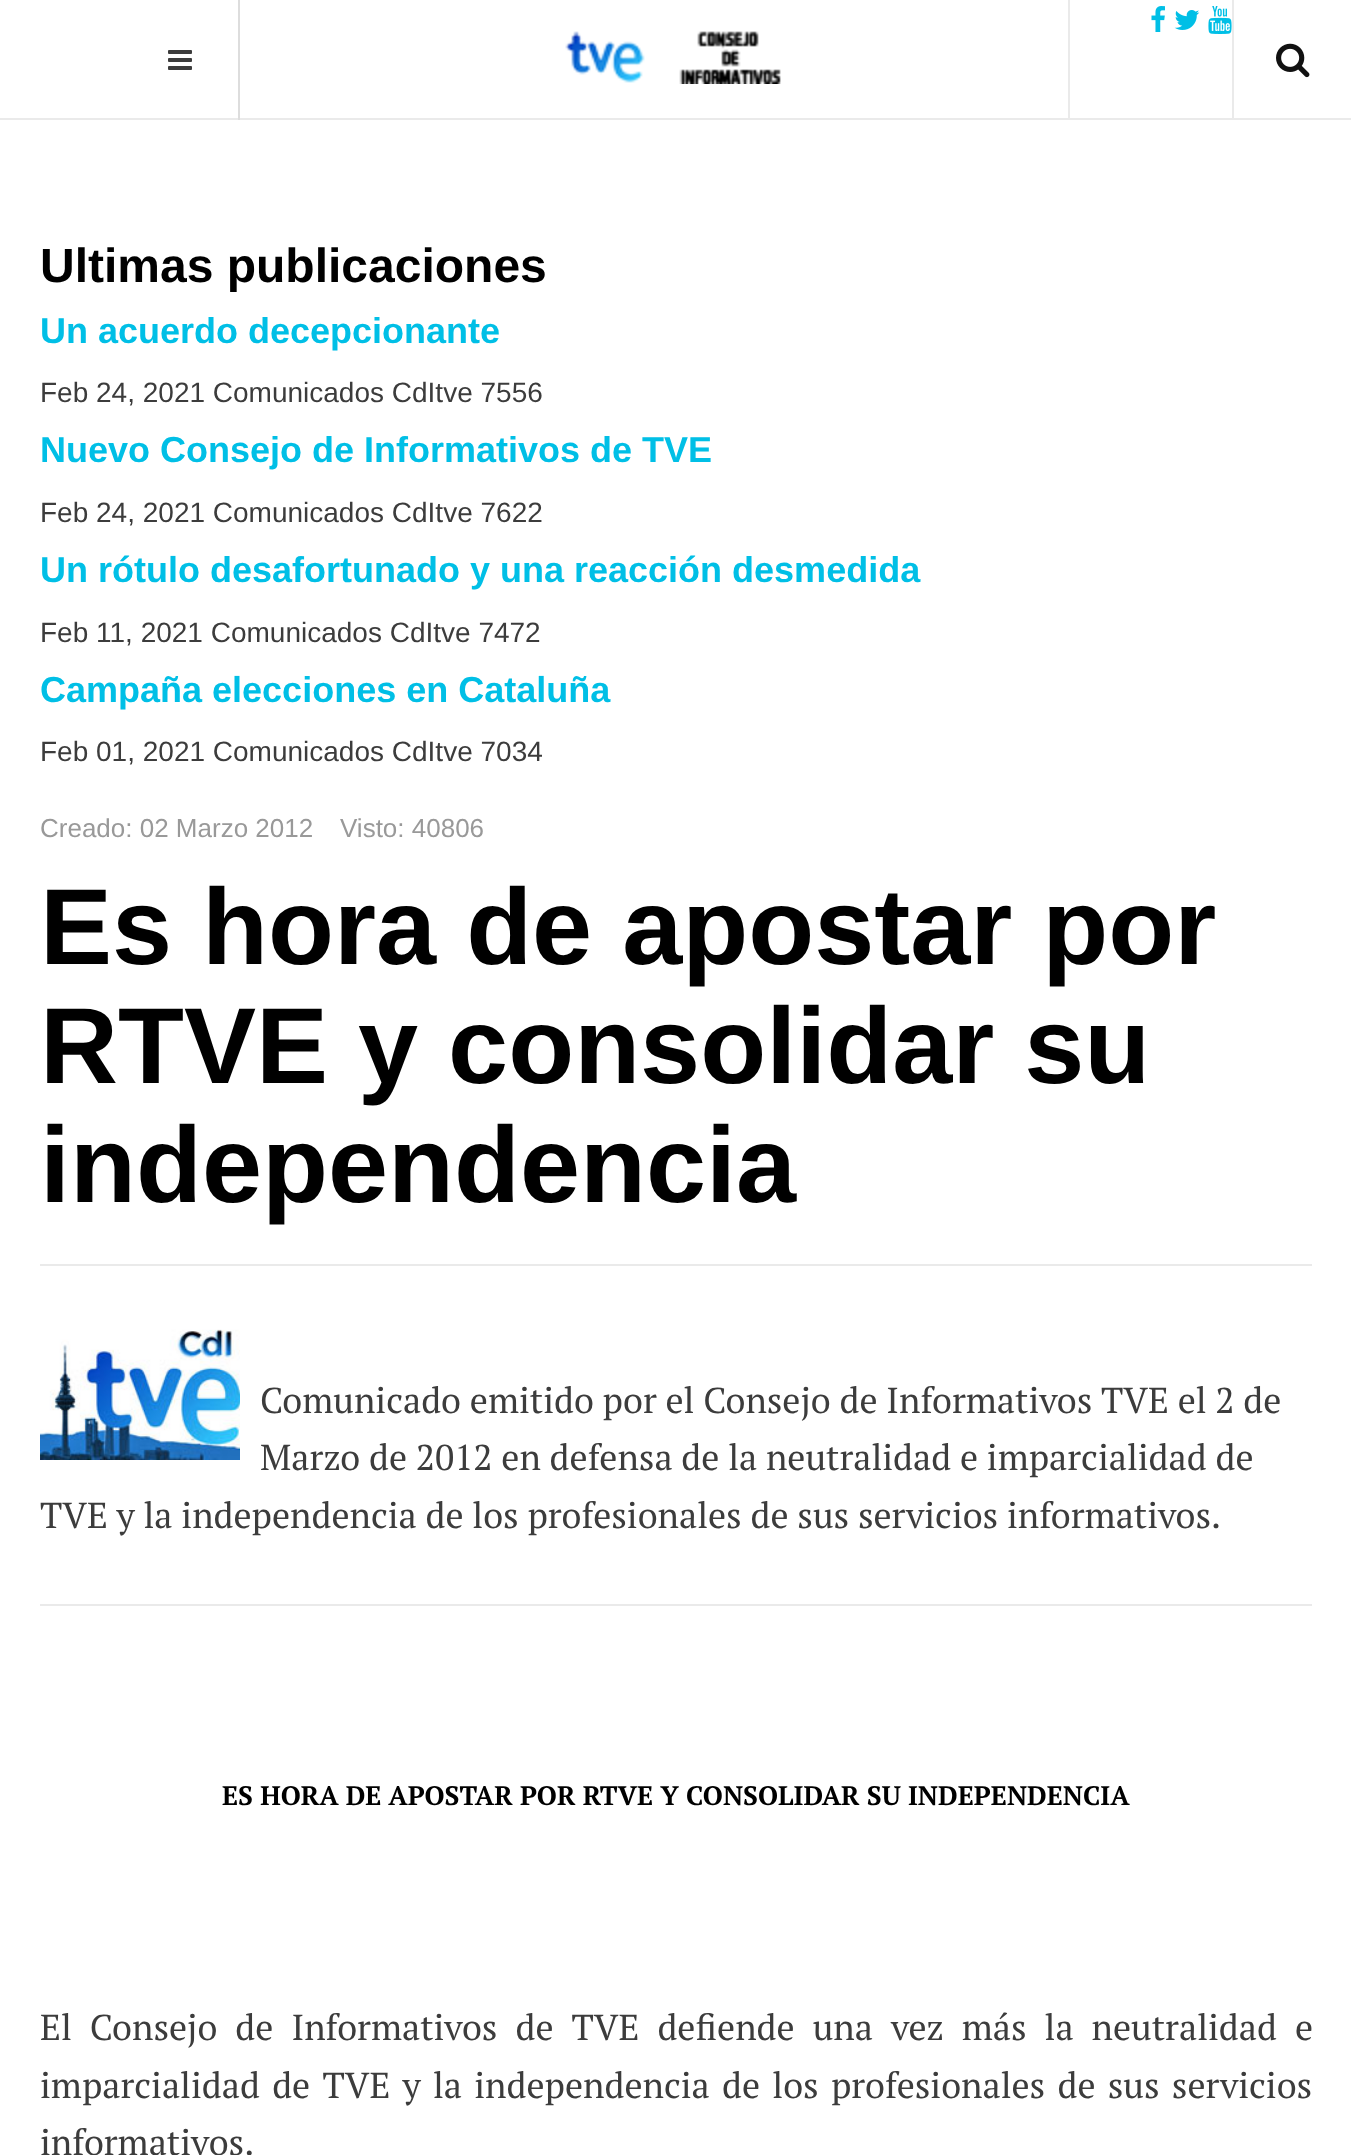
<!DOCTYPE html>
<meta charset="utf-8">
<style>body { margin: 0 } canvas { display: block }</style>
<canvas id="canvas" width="1351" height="2155"></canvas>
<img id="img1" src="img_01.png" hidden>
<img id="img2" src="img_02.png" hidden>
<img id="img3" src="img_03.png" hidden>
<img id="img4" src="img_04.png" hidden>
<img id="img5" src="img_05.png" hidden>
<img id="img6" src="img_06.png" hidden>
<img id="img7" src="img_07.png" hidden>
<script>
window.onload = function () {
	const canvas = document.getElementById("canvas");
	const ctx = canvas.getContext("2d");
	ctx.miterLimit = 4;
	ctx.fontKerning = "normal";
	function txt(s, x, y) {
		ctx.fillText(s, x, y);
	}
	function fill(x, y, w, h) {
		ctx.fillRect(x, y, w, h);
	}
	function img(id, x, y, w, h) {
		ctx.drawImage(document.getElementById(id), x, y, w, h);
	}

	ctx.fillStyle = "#FFFFFF";
	fill(0, 0, 1351, 2155);
	ctx.fillStyle = "#EAEAEA";
	fill(0, 118, 1351, 2);
	img("img1", 565, 31, 216, 53);
	fill(1068, 0, 2, 118);
	img("img2", 1151, 6, 14, 26);
	img("img3", 1174, 10, 26, 20);
	img("img4", 1208, 6, 24, 28);
	fill(1232, 0, 2, 118);
	img("img5", 1276, 43, 34, 35);
	ctx.fillStyle = "#DDDDDD";
	fill(238, 0, 2, 120);
	img("img6", 168, 50, 24, 20);
	ctx.fillStyle = "#EAEAEA";
	fill(40, 1264, 1272, 2);
	img("img7", 40, 1329, 200, 131);
	fill(40, 1604, 1272, 2);
	ctx.font = "bold 48px Liberation Sans";
	ctx.fillStyle = "#000000";
	txt("Ultimas publicaciones", 40, 282);
	ctx.font = "bold 36px Liberation Sans";
	ctx.fillStyle = "#00BFE6";
	txt("Un acuerdo decepcionante", 40, 343);
	ctx.font = "28px Liberation Sans";
	ctx.fillStyle = "#3C3C3C";
	txt("Feb 24, 2021 Comunicados CdItve 7556", 40, 402);
	ctx.font = "bold 36px Liberation Sans";
	ctx.fillStyle = "#00BFE6";
	txt("Nuevo Consejo de Informativos de TVE", 40, 462);
	ctx.font = "28px Liberation Sans";
	ctx.fillStyle = "#3C3C3C";
	txt("Feb 24, 2021 Comunicados CdItve 7622", 40, 522);
	ctx.font = "bold 36px Liberation Sans";
	ctx.fillStyle = "#00BFE6";
	txt("Un rótulo desafortunado y una reacción desmedida", 40, 582);
	ctx.font = "28px Liberation Sans";
	ctx.fillStyle = "#3C3C3C";
	txt("Feb 11, 2021 Comunicados CdItve 7472", 40, 642);
	ctx.font = "bold 36px Liberation Sans";
	ctx.fillStyle = "#00BFE6";
	txt("Campaña elecciones en Cataluña", 40, 702);
	ctx.font = "28px Liberation Sans";
	ctx.fillStyle = "#3C3C3C";
	txt("Feb 01, 2021 Comunicados CdItve 7034", 40, 761);
	ctx.font = "26px Liberation Sans";
	ctx.fillStyle = "#999999";
	txt("Creado: 02 Marzo 2012", 40, 837);
	txt("Visto: 40806", 340, 837);
	ctx.font = "bold 108px Liberation Sans";
	ctx.fillStyle = "#000000";
	txt("Es hora de apostar por", 40, 964);
	txt("RTVE y consolidar su", 40, 1083);
	txt("independencia", 40, 1202);
	ctx.font = "36px PT Serif";
	ctx.fillStyle = "#3C3C3C";
	txt("Comunicado emitido por el Consejo de Informativos TVE el 2 de", 260, 1413);
	txt("Marzo de 2012 en defensa de la neutralidad e imparcialidad de", 260, 1470);
	txt("TVE y la independencia de los profesionales de sus servicios informativos.", 40, 1528);
	ctx.font = "bold 26.65px PT Serif";
	ctx.fillStyle = "#000000";
	txt("ES HORA DE APOSTAR POR RTVE Y CONSOLIDAR SU INDEPENDENCIA", 222, 1805);
	ctx.wordSpacing = "9.25px";
	ctx.font = "36px PT Serif";
	ctx.fillStyle = "#3C3C3C";
	txt("El Consejo de Informativos de TVE defiende una vez más la neutralidad e", 40, 2040);
	ctx.wordSpacing = "3.5px";
	txt("imparcialidad de TVE y la independencia de los profesionales de sus servicios", 40, 2098);
	ctx.wordSpacing = "0px";
	txt("informativos.", 40, 2155);
};
</script>
